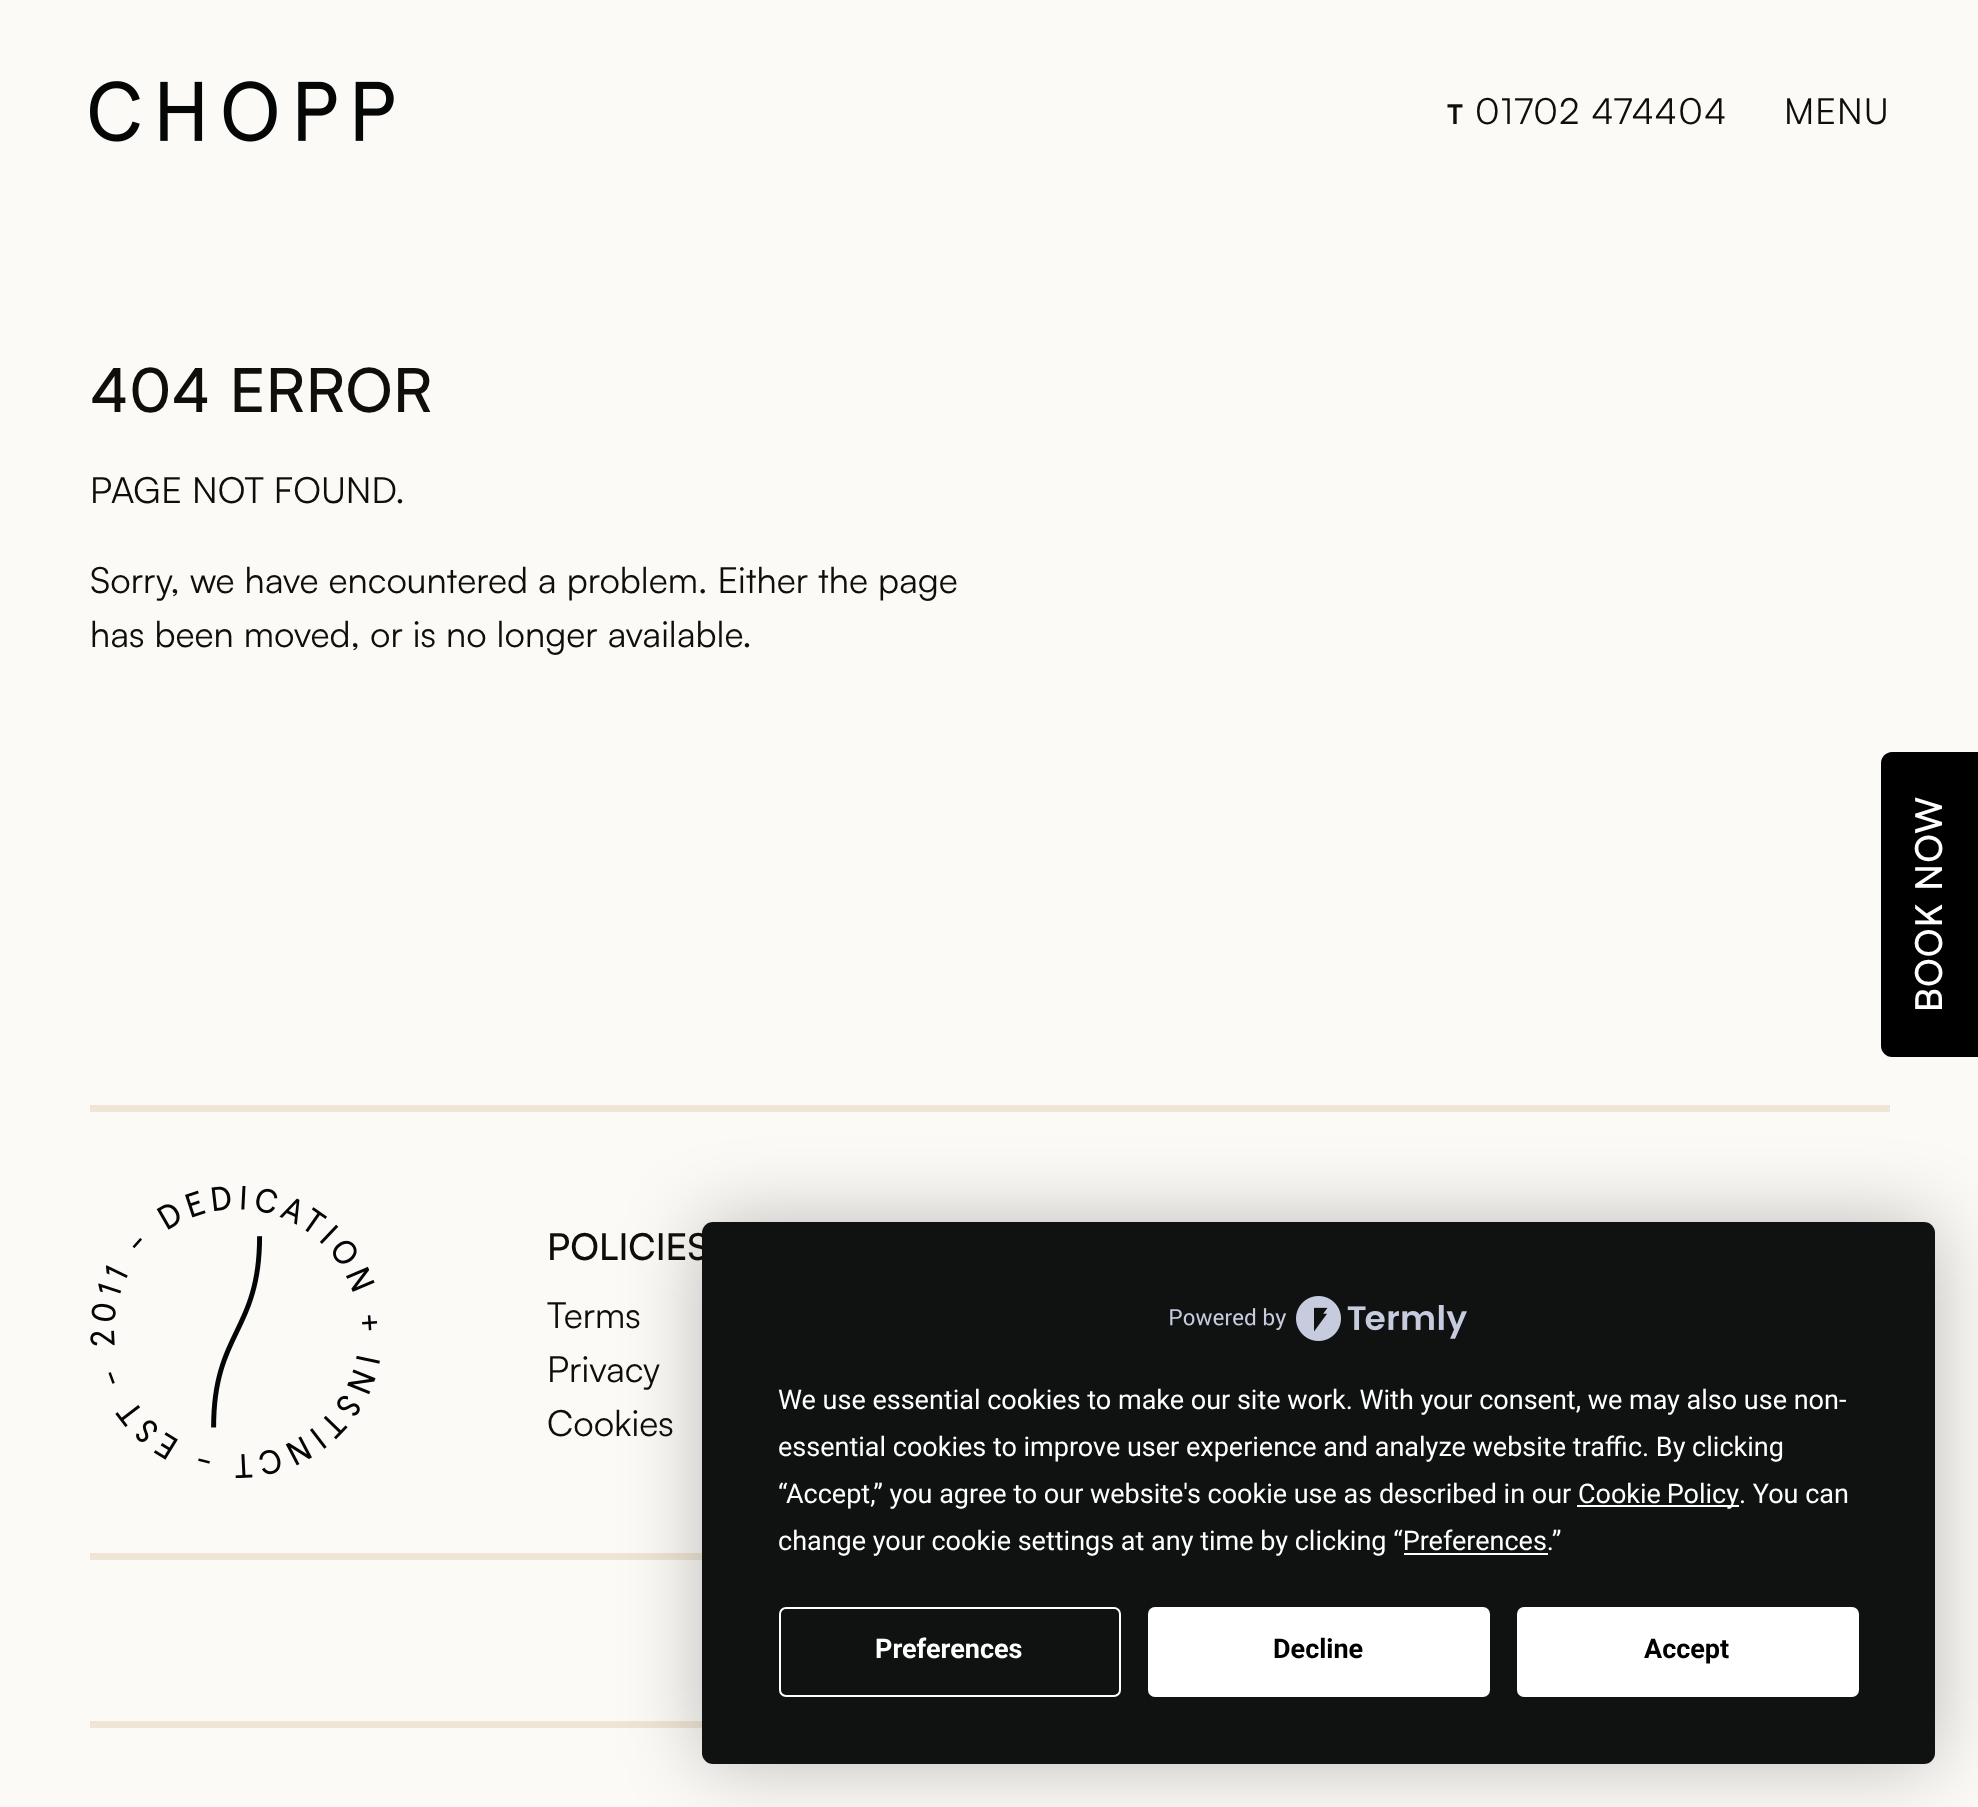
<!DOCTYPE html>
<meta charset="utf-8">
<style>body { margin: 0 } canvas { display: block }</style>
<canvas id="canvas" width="1978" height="1807"></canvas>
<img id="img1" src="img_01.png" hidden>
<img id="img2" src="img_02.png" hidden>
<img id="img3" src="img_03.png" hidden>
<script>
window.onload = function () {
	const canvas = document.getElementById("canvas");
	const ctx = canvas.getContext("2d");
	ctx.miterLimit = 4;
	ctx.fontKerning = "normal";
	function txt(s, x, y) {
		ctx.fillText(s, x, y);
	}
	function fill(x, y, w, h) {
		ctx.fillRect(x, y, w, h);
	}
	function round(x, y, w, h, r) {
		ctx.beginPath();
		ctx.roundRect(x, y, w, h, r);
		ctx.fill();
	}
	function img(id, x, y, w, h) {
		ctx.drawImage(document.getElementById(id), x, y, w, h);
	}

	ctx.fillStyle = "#FCFAF7";
	fill(0, 0, 1978, 1807);
	img("img1", 90, 81, 304, 61);
	ctx.fillStyle = "#000000";
	ctx.beginPath();
	ctx.moveTo(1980, 1057);
	ctx.lineTo(1892, 1057);
	ctx.bezierCurveTo(1886, 1057, 1881, 1052, 1881, 1046);
	ctx.lineTo(1881, 763);
	ctx.bezierCurveTo(1881, 757, 1886, 752, 1892, 752);
	ctx.lineTo(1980, 752);
	ctx.closePath();
	ctx.fill();
	ctx.fillStyle = "#EFE5D6";
	fill(90, 1105, 1800, 7);
	fill(90, 1553, 612, 7);
	img("img2", 90, 1186, 290, 292);
	fill(90, 1721, 612, 7);
	ctx.fillStyle = "rgba(0, 0, 0, 0.25)";
	ctx.filter = "blur(39.5px)";
	ctx.beginPath();
	ctx.roundRect(702, 1222, 1233, 542, 11);
	ctx.fill();
	ctx.filter = "none";
	ctx.letterSpacing = "1.1px";
	ctx.font = "bold 27px 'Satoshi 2'";
	ctx.fillStyle = "#100D0A";
	txt("T", 1447, 124);
	ctx.font = "36px Satoshi";
	txt("01702 474404", 1475, 124);
	txt("MENU", 1784, 124);
	ctx.letterSpacing = "2.25px";
	ctx.font = "bold 59px Satoshi";
	txt("404 ERROR", 90, 412);
	ctx.letterSpacing = "0px";
	ctx.font = "36px Satoshi";
	txt("PAGE NOT FOUND.", 90, 503);
	txt("Sorry, we have encountered a problem. Either the page", 90, 593);
	txt("has been moved, or is no longer available.", 90, 647);
	ctx.letterSpacing = "2.25px";
	ctx.font = "bold 36px Satoshi";
	ctx.fillStyle = "#FFFFFF";
	ctx.save();
	ctx.translate(1942, 1012);
	ctx.rotate(-90 * Math.PI / 180);
	ctx.fillText("BOOK NOW", 0, 0);
	ctx.restore();
	ctx.letterSpacing = "1.1px";
	ctx.fillStyle = "#100D0A";
	txt("POLICIES", 547, 1260);
	ctx.letterSpacing = "0px";
	ctx.font = "36px Satoshi";
	txt("Terms", 547, 1328);
	txt("Privacy", 547, 1382);
	txt("Cookies", 547, 1436);
	ctx.fillStyle = "#101212";
	round(702, 1222, 1233, 542, 11);
	img("img3", 1170, 1296, 297, 45);
	ctx.font = "27px Roboto";
	ctx.fillStyle = "#FFFFFF";
	txt("We use essential cookies to make our site work. With your consent, we may also use non-", 778, 1409);
	txt("essential cookies to improve user experience and analyze website traffic. By clicking", 778, 1456);
	txt("“Accept,” you agree to our website's cookie use as described in our", 778, 1503);
	fill(1577, 1505, 162, 2);
	ctx.wordSpacing = "-1px";
	txt("Cookie Policy", 1578, 1503);
	ctx.wordSpacing = "0px";
	txt(". You can", 1739, 1503);
	txt("change your cookie settings at any time by clicking “Preferences.”", 778, 1550);
	fill(1404, 1553, 144, 2);
	ctx.beginPath();
	ctx.roundRect(780, 1608, 340, 88, 6);
	ctx.strokeStyle = "#FFFFFF";
	ctx.lineWidth = 2;
	ctx.stroke();
	ctx.font = "bold 27px Roboto";
	txt("Preferences", 875, 1658);
	ctx.beginPath();
	ctx.roundRect(1149, 1608, 340, 88, 6);
	ctx.fill();
	ctx.stroke();
	ctx.fillStyle = "#000000";
	txt("Decline", 1273, 1658);
	ctx.fillStyle = "#FFFFFF";
	ctx.beginPath();
	ctx.roundRect(1518, 1608, 340, 88, 6);
	ctx.fill();
	ctx.stroke();
	ctx.fillStyle = "#000000";
	txt("Accept", 1644, 1658);
};
</script>
